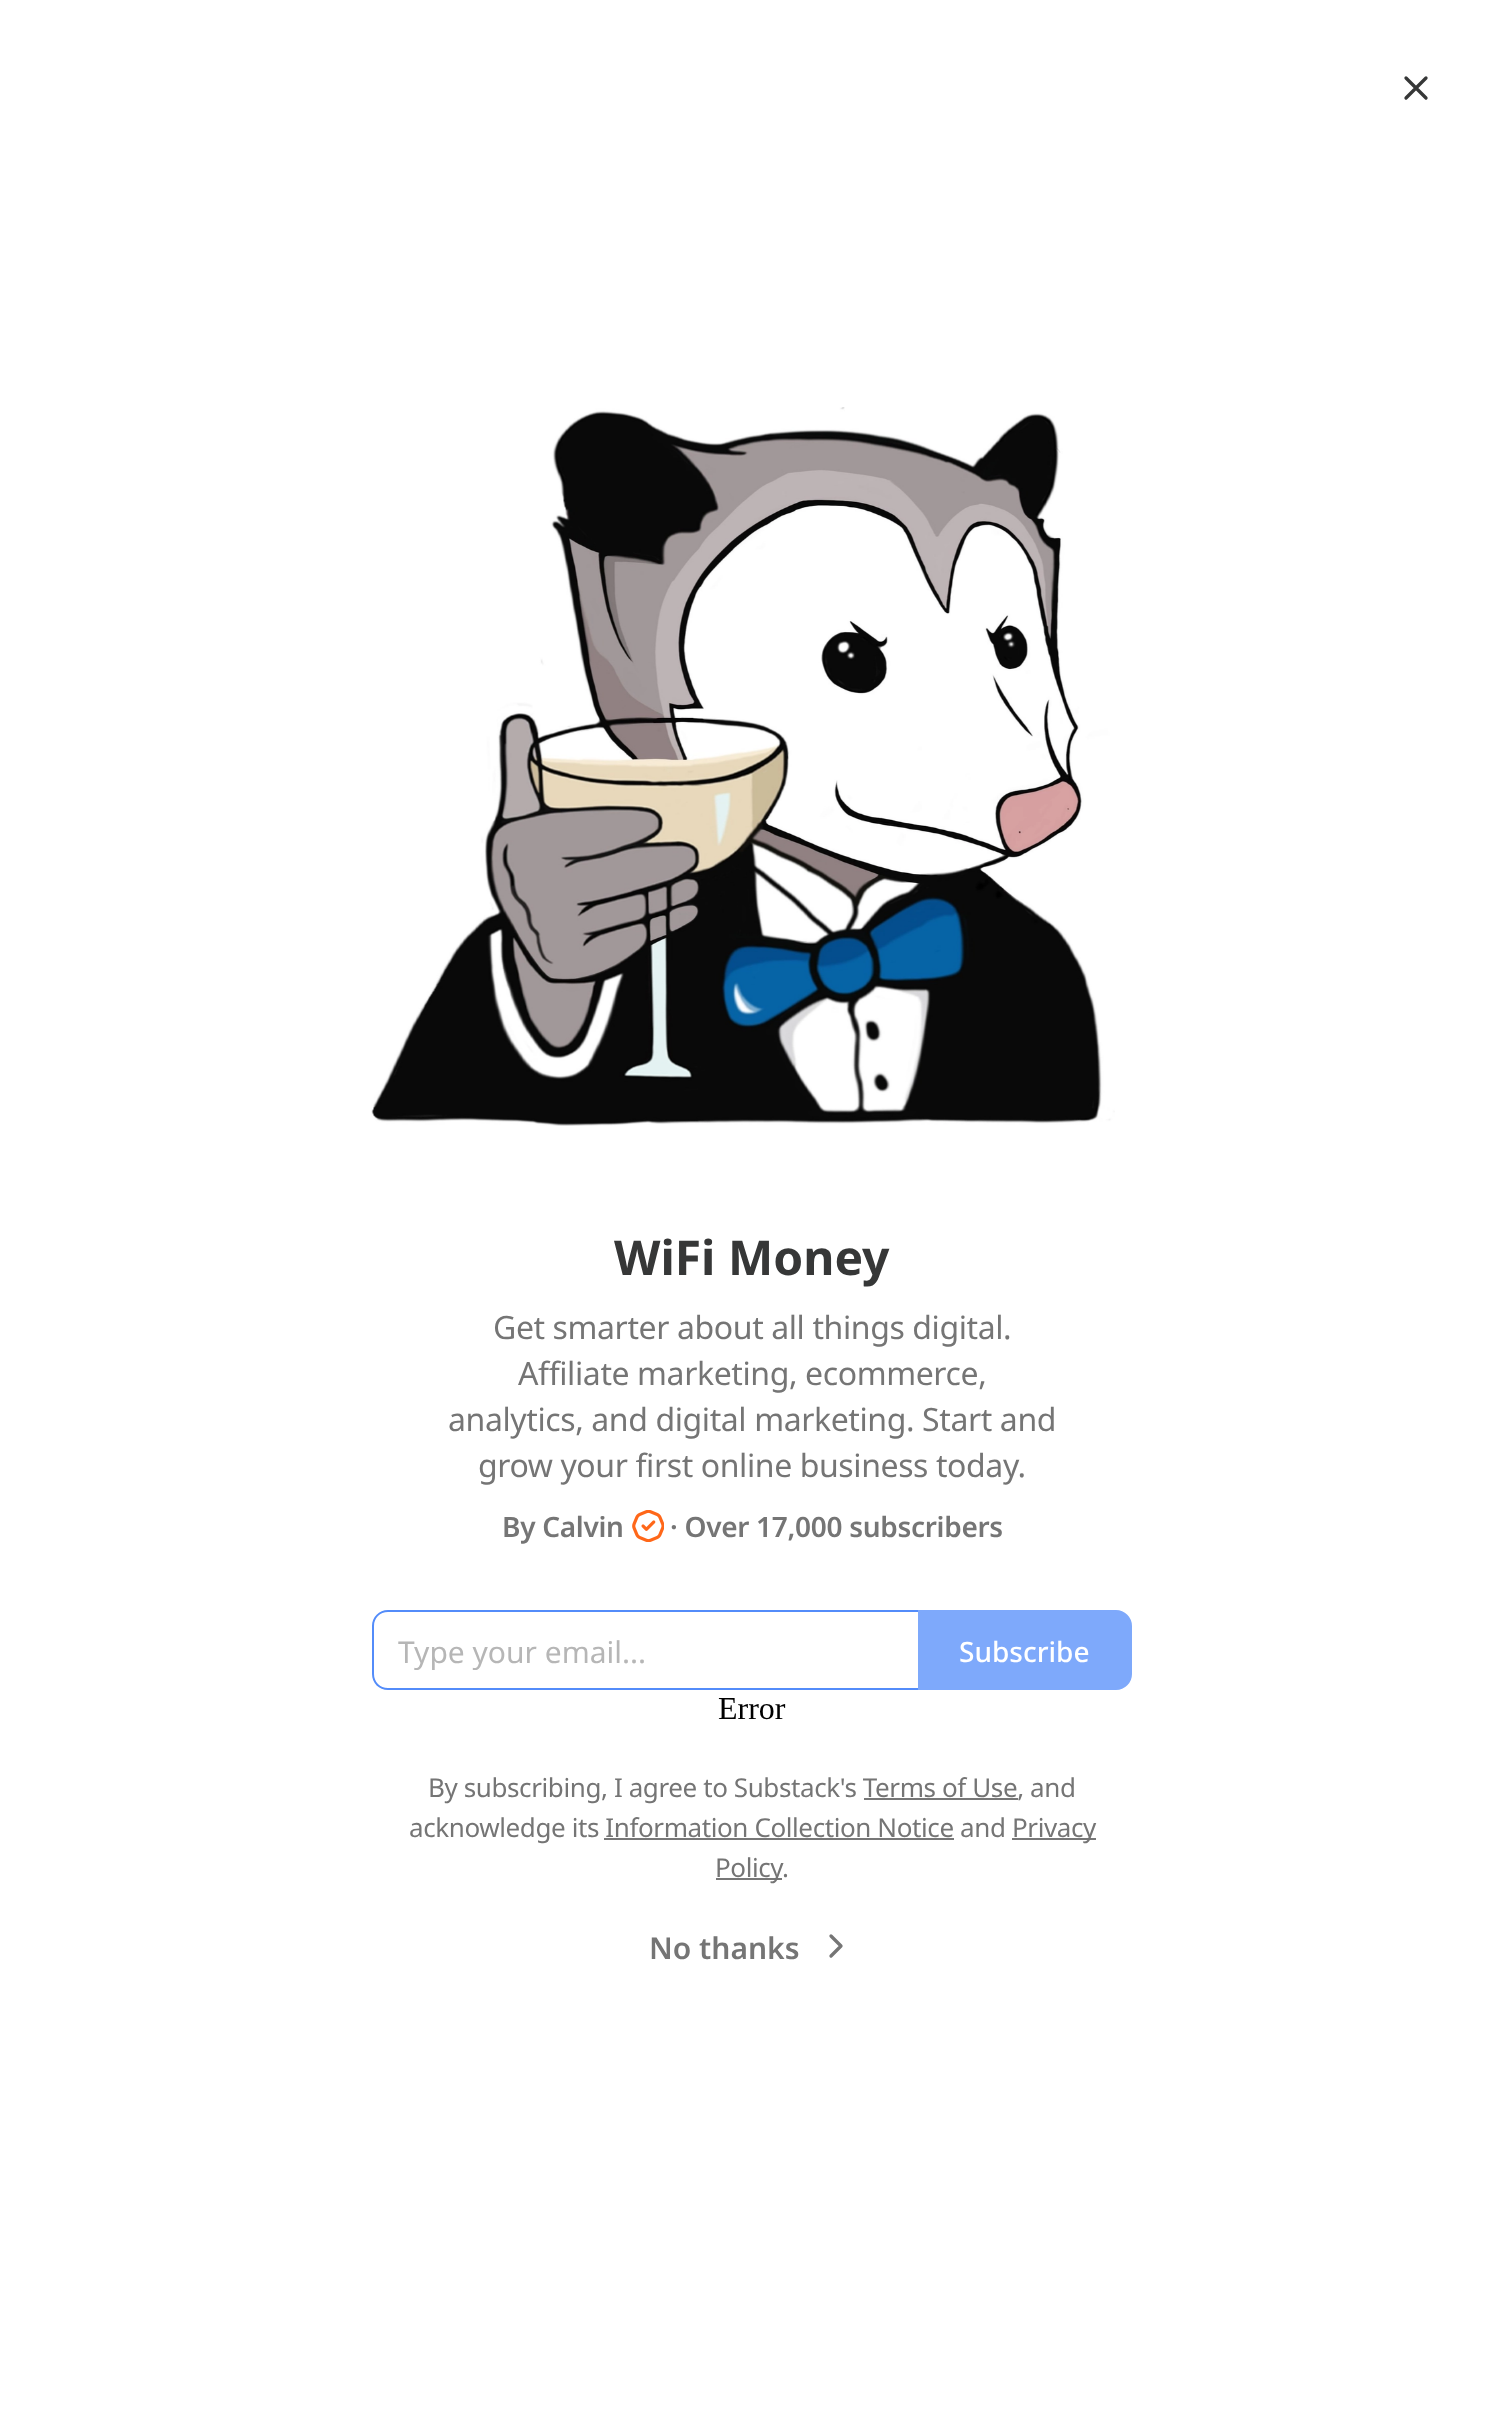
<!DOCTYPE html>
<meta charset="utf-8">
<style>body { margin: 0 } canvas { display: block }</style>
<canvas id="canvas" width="1504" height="2423"></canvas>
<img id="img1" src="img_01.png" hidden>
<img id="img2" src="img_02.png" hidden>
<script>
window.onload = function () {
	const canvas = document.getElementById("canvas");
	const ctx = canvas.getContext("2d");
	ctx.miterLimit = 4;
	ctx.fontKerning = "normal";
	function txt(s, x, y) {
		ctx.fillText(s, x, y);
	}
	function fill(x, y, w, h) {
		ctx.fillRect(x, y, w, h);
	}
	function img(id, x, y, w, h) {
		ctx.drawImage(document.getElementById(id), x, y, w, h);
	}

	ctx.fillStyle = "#FFFFFF";
	fill(0, 0, 1504, 2423);
	ctx.beginPath();
	ctx.moveTo(1426, 78);
	ctx.lineTo(1406, 98);
	ctx.moveTo(1406, 78);
	ctx.lineTo(1426, 98);
	ctx.strokeStyle = "#363737";
	ctx.lineWidth = 3.3;
	ctx.lineCap = "round";
	ctx.lineJoin = "round";
	ctx.stroke();
	img("img1", 371, 407, 744, 719);
	img("img2", 632, 1510, 32, 32);
	ctx.fillStyle = "#538CFA";
	ctx.beginPath();
	ctx.moveTo(388, 1610);
	ctx.lineTo(918, 1610);
	ctx.lineTo(918, 1690);
	ctx.lineTo(388, 1690);
	ctx.bezierCurveTo(379, 1690, 372, 1683, 372, 1674);
	ctx.lineTo(372, 1626);
	ctx.bezierCurveTo(372, 1617, 379, 1610, 388, 1610);
	ctx.closePath();
	ctx.moveTo(388, 1612);
	ctx.lineTo(918, 1612);
	ctx.lineTo(918, 1688);
	ctx.lineTo(388, 1688);
	ctx.bezierCurveTo(380, 1688, 374, 1682, 374, 1674);
	ctx.lineTo(374, 1626);
	ctx.bezierCurveTo(374, 1618, 380, 1612, 388, 1612);
	ctx.closePath();
	ctx.fill("evenodd");
	ctx.fillStyle = "#7EA9FB";
	ctx.beginPath();
	ctx.roundRect(919, 1611, 212, 78, [0, 15, 15, 0]);
	ctx.fill();
	ctx.strokeStyle = "#7EA9FB";
	ctx.lineWidth = 2;
	ctx.lineJoin = "miter";
	ctx.stroke();
	ctx.fillStyle = "#777777";
	fill(1012, 1838, 84, 2);
	fill(716, 1878, 66, 2);
	ctx.beginPath();
	ctx.moveTo(831, 1956);
	ctx.lineTo(841, 1946);
	ctx.lineTo(831, 1936);
	ctx.strokeStyle = "#757575";
	ctx.lineWidth = 3.3;
	ctx.lineJoin = "round";
	ctx.stroke();
	ctx.font = "bold 48px Noto Sans";
	ctx.fillStyle = "#363737";
	txt("WiFi Money", 614, 1275);
	ctx.letterSpacing = "-0.4px";
	ctx.font = "32px Noto Sans";
	ctx.fillStyle = "#757575";
	txt("Get smarter about all things digital.", 493, 1339);
	txt("Affiliate marketing, ecommerce,", 518, 1385);
	txt("analytics, and digital marketing. Start and", 448, 1431);
	txt("grow your first online business today.", 478, 1477);
	ctx.letterSpacing = "-0.3px";
	ctx.font = "600 28px Noto Sans";
	txt("By Calvin", 502, 1537);
	txt("· Over 17,000 subscribers", 670, 1537);
	ctx.save();
	ctx.beginPath();
	ctx.rect(398, 1630, 496, 40);
	ctx.clip();
	ctx.letterSpacing = "0px";
	ctx.font = "30px Noto Sans";
	ctx.fillStyle = "#B6B6B6";
	txt("Type your email...", 398, 1663);
	ctx.restore();
	ctx.letterSpacing = "0px";
	ctx.font = "500 28px Noto Sans";
	ctx.fillStyle = "#FFFFFF";
	txt("Subscribe", 959, 1662);
	ctx.font = "32px Liberation Serif";
	ctx.fillStyle = "#000000";
	txt("Error", 718, 1719);
	ctx.letterSpacing = "-0.4px";
	ctx.font = "26px Noto Sans";
	ctx.fillStyle = "#757575";
	txt("By subscribing, I agree to Substack's Terms of Use, and", 428, 1797);
	ctx.fillStyle = "#777777";
	fill(864, 1798, 154, 2);
	ctx.fillStyle = "#757575";
	txt("acknowledge its Information Collection Notice and", 409, 1837);
	txt("Privacy", 1012, 1837);
	ctx.fillStyle = "#777777";
	fill(604, 1838, 350, 2);
	ctx.fillStyle = "#757575";
	txt("Policy", 715, 1877);
	txt(".", 782, 1877);
	ctx.letterSpacing = "0px";
	ctx.font = "600 30px Noto Sans";
	txt("No thanks", 649, 1959);
};
</script>
